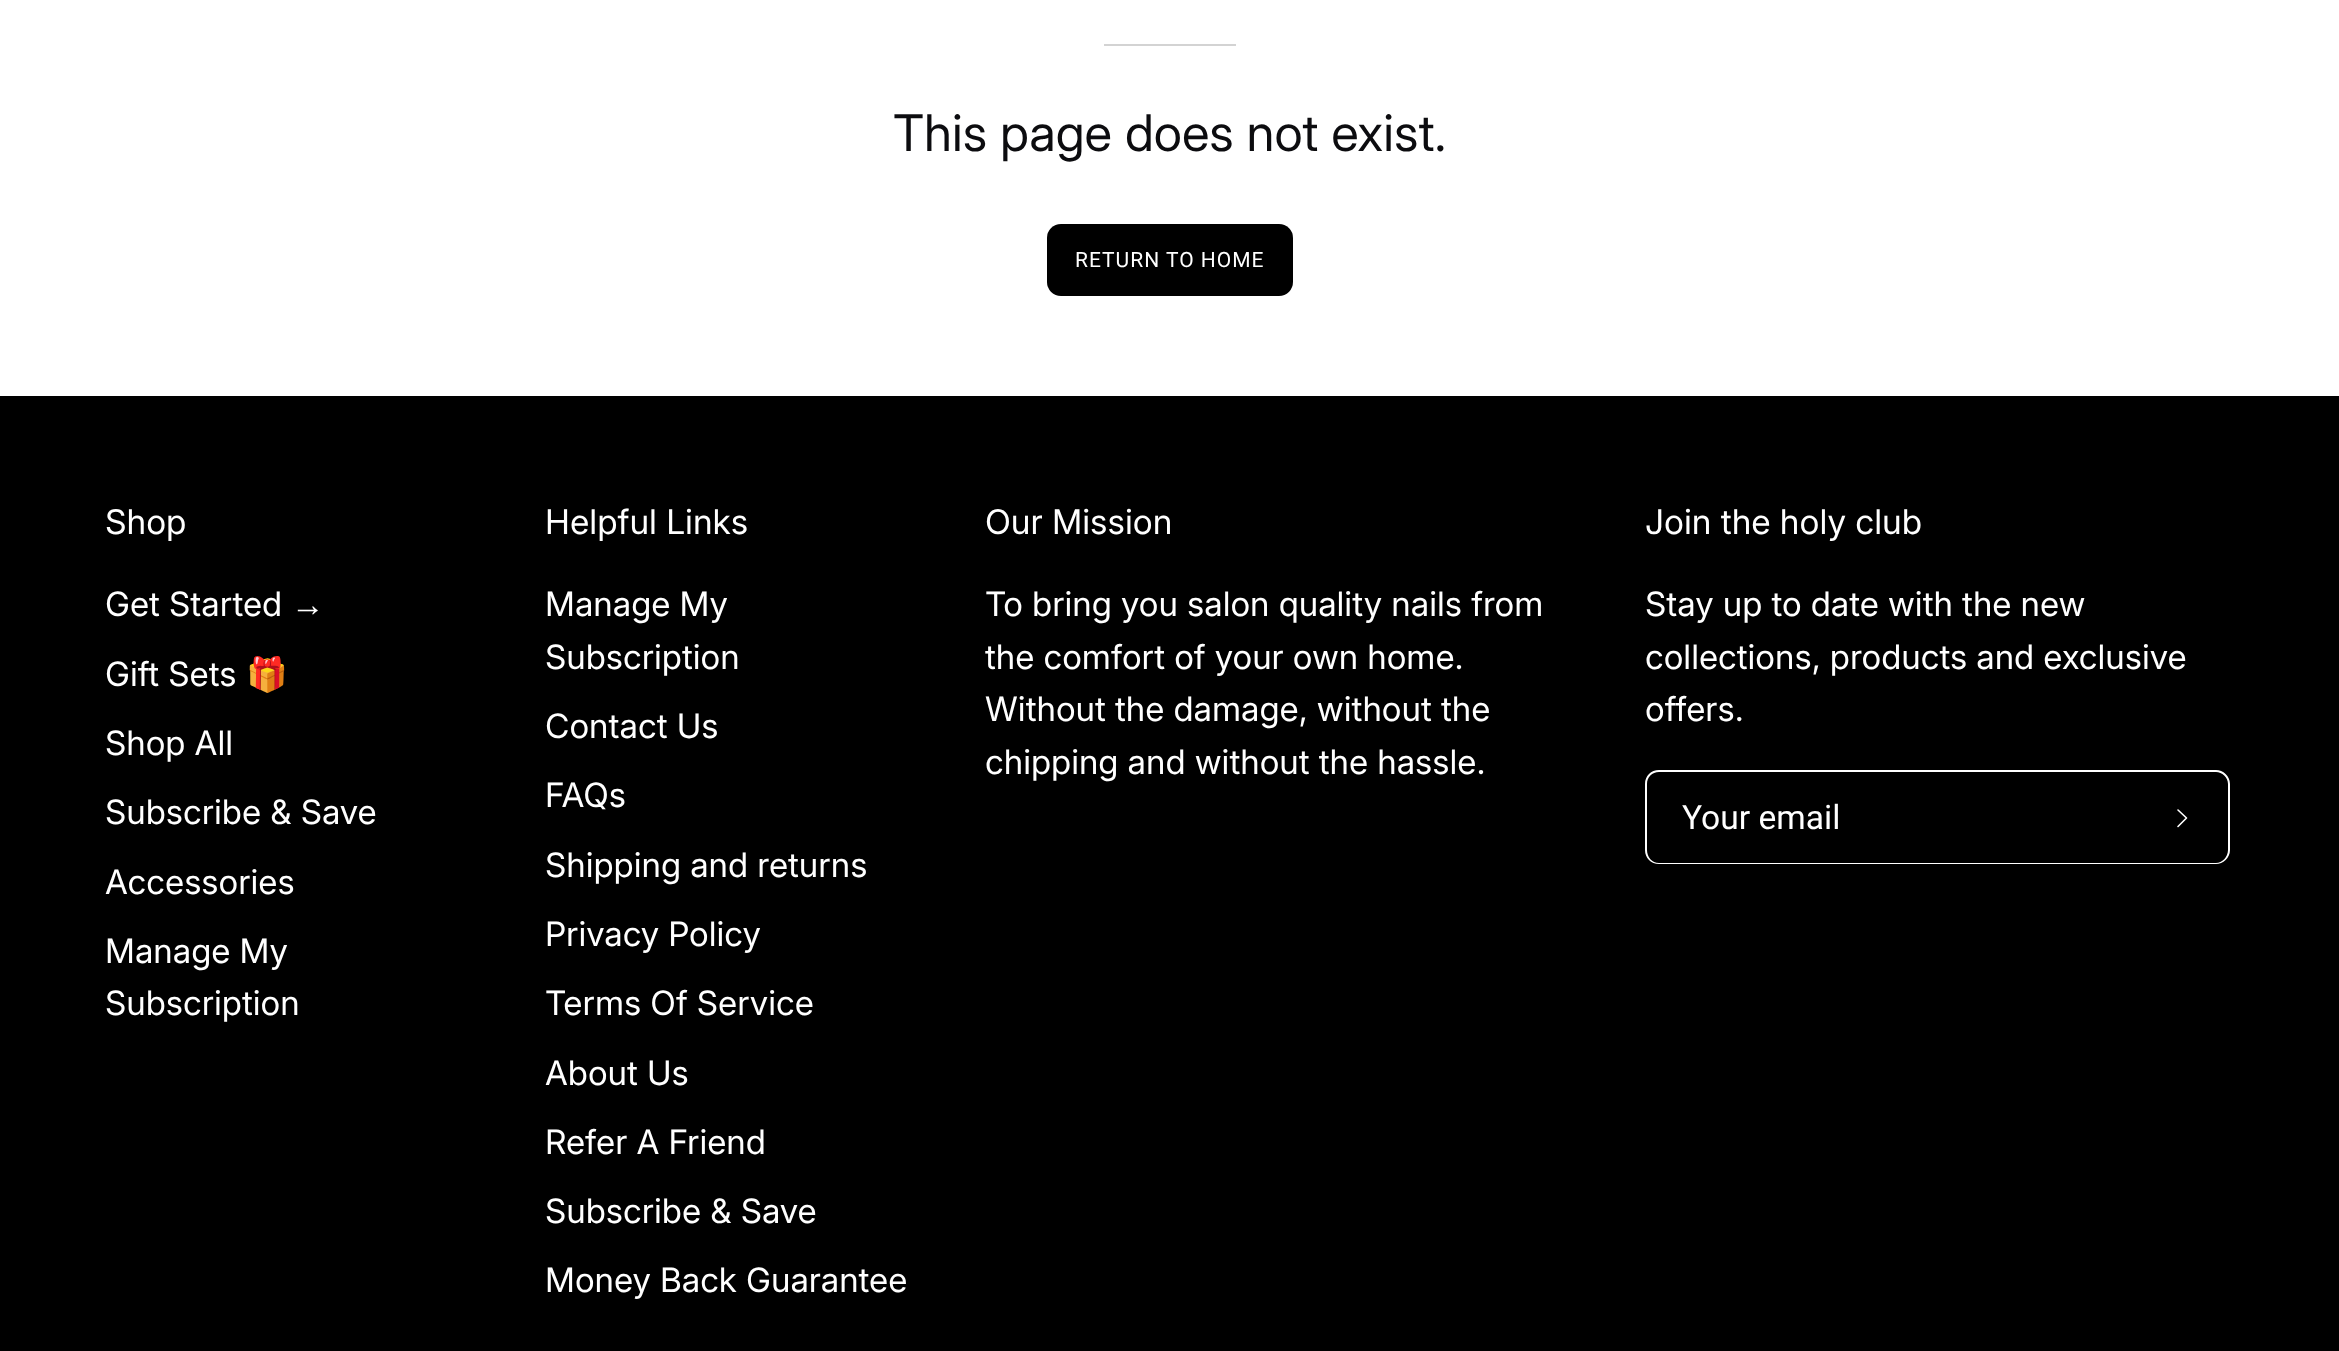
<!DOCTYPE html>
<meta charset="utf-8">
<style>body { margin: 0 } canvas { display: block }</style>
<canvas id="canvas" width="2339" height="1351"></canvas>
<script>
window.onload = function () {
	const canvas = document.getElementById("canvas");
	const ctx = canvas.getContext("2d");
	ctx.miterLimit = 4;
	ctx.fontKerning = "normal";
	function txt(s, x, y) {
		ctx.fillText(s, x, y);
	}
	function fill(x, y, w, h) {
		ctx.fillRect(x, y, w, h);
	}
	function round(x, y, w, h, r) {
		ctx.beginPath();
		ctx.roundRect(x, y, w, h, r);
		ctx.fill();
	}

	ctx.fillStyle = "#FFFFFF";
	fill(0, 0, 2339, 1351);
	ctx.fillStyle = "#D3D3D3";
	fill(1104, 44, 132, 2);
	ctx.fillStyle = "#000000";
	round(1047, 224, 246, 72, 14);
	fill(0, 396, 2339, 955);
	ctx.fillStyle = "#FFFFFF";
	ctx.beginPath();
	ctx.moveTo(1659, 770);
	ctx.lineTo(2135, 770);
	ctx.lineTo(2135, 864);
	ctx.lineTo(1659, 864);
	ctx.bezierCurveTo(1651, 864, 1645, 858, 1645, 850);
	ctx.lineTo(1645, 784);
	ctx.bezierCurveTo(1645, 776, 1651, 770, 1659, 770);
	ctx.closePath();
	ctx.moveTo(1659, 772);
	ctx.lineTo(2135, 772);
	ctx.lineTo(2135, 863);
	ctx.lineTo(1659, 863);
	ctx.bezierCurveTo(1652, 863, 1647, 857, 1647, 850);
	ctx.lineTo(1647, 784);
	ctx.bezierCurveTo(1647, 777, 1652, 772, 1659, 772);
	ctx.closePath();
	ctx.fill("evenodd");
	ctx.beginPath();
	ctx.moveTo(2135, 770);
	ctx.lineTo(2216, 770);
	ctx.bezierCurveTo(2223, 770, 2230, 776, 2230, 784);
	ctx.lineTo(2230, 850);
	ctx.bezierCurveTo(2230, 858, 2223, 864, 2216, 864);
	ctx.lineTo(2135, 864);
	ctx.closePath();
	ctx.moveTo(2135, 772);
	ctx.lineTo(2216, 772);
	ctx.bezierCurveTo(2222, 772, 2228, 777, 2228, 784);
	ctx.lineTo(2228, 850);
	ctx.bezierCurveTo(2228, 857, 2222, 863, 2216, 863);
	ctx.lineTo(2135, 863);
	ctx.closePath();
	ctx.fill("evenodd");
	ctx.beginPath();
	ctx.moveTo(2178, 810);
	ctx.lineTo(2186.5, 818);
	ctx.lineTo(2178, 826.5);
	ctx.strokeStyle = "#FFFFFF";
	ctx.lineWidth = 1.6;
	ctx.lineCap = "round";
	ctx.lineJoin = "round";
	ctx.stroke();
	ctx.font = "50.4px Inter";
	ctx.fillStyle = "#0C0C0F";
	txt("This page does not exist.", 893, 151);
	ctx.letterSpacing = "1px";
	ctx.font = "21px Roboto";
	ctx.fillStyle = "#FFFFFF";
	txt("RETURN TO HOME", 1075, 267);
	ctx.letterSpacing = "0px";
	ctx.font = "34px 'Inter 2'";
	txt("Shop", 105, 534);
	ctx.font = "33.6px 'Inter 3'";
	txt("Get Started", 105, 616);
	ctx.font = "33.6px Liberation Serif";
	txt("→", 291, 616);
	ctx.font = "33.6px 'Inter 3'";
	txt("Gift Sets", 105, 686);
	ctx.font = "33.6px Noto Color Emoji";
	txt("🎁", 246, 686);
	ctx.font = "33.6px 'Inter 3'";
	txt("Shop All", 105, 755);
	txt("Subscribe & Save", 105, 824);
	txt("Accessories", 105, 894);
	txt("Manage My", 105, 963);
	txt("Subscription", 105, 1015);
	ctx.font = "34px 'Inter 2'";
	txt("Helpful Links", 545, 534);
	ctx.font = "33.6px 'Inter 3'";
	txt("Manage My", 545, 616);
	txt("Subscription", 545, 669);
	txt("Contact Us", 545, 738);
	txt("FAQs", 545, 807);
	txt("Shipping and returns", 545, 877);
	txt("Privacy Policy", 545, 946);
	txt("Terms Of Service", 545, 1015);
	txt("About Us", 545, 1085);
	txt("Refer A Friend", 545, 1154);
	txt("Subscribe & Save", 545, 1223);
	txt("Money Back Guarantee", 545, 1292);
	ctx.font = "34px 'Inter 2'";
	txt("Our Mission", 985, 534);
	ctx.font = "33.6px 'Inter 3'";
	txt("To bring you salon quality nails from", 985, 616);
	txt("the comfort of your own home.", 985, 669);
	txt("Without the damage, without the", 985, 721);
	txt("chipping and without the hassle.", 985, 774);
	ctx.font = "34px 'Inter 2'";
	txt("Join the holy club", 1645, 534);
	ctx.font = "33.6px 'Inter 3'";
	txt("Stay up to date with the new", 1645, 616);
	txt("collections, products and exclusive", 1645, 669);
	txt("offers.", 1645, 721);
	ctx.font = "33.6px Roboto";
	txt("Your email", 1682, 829);
};
</script>
